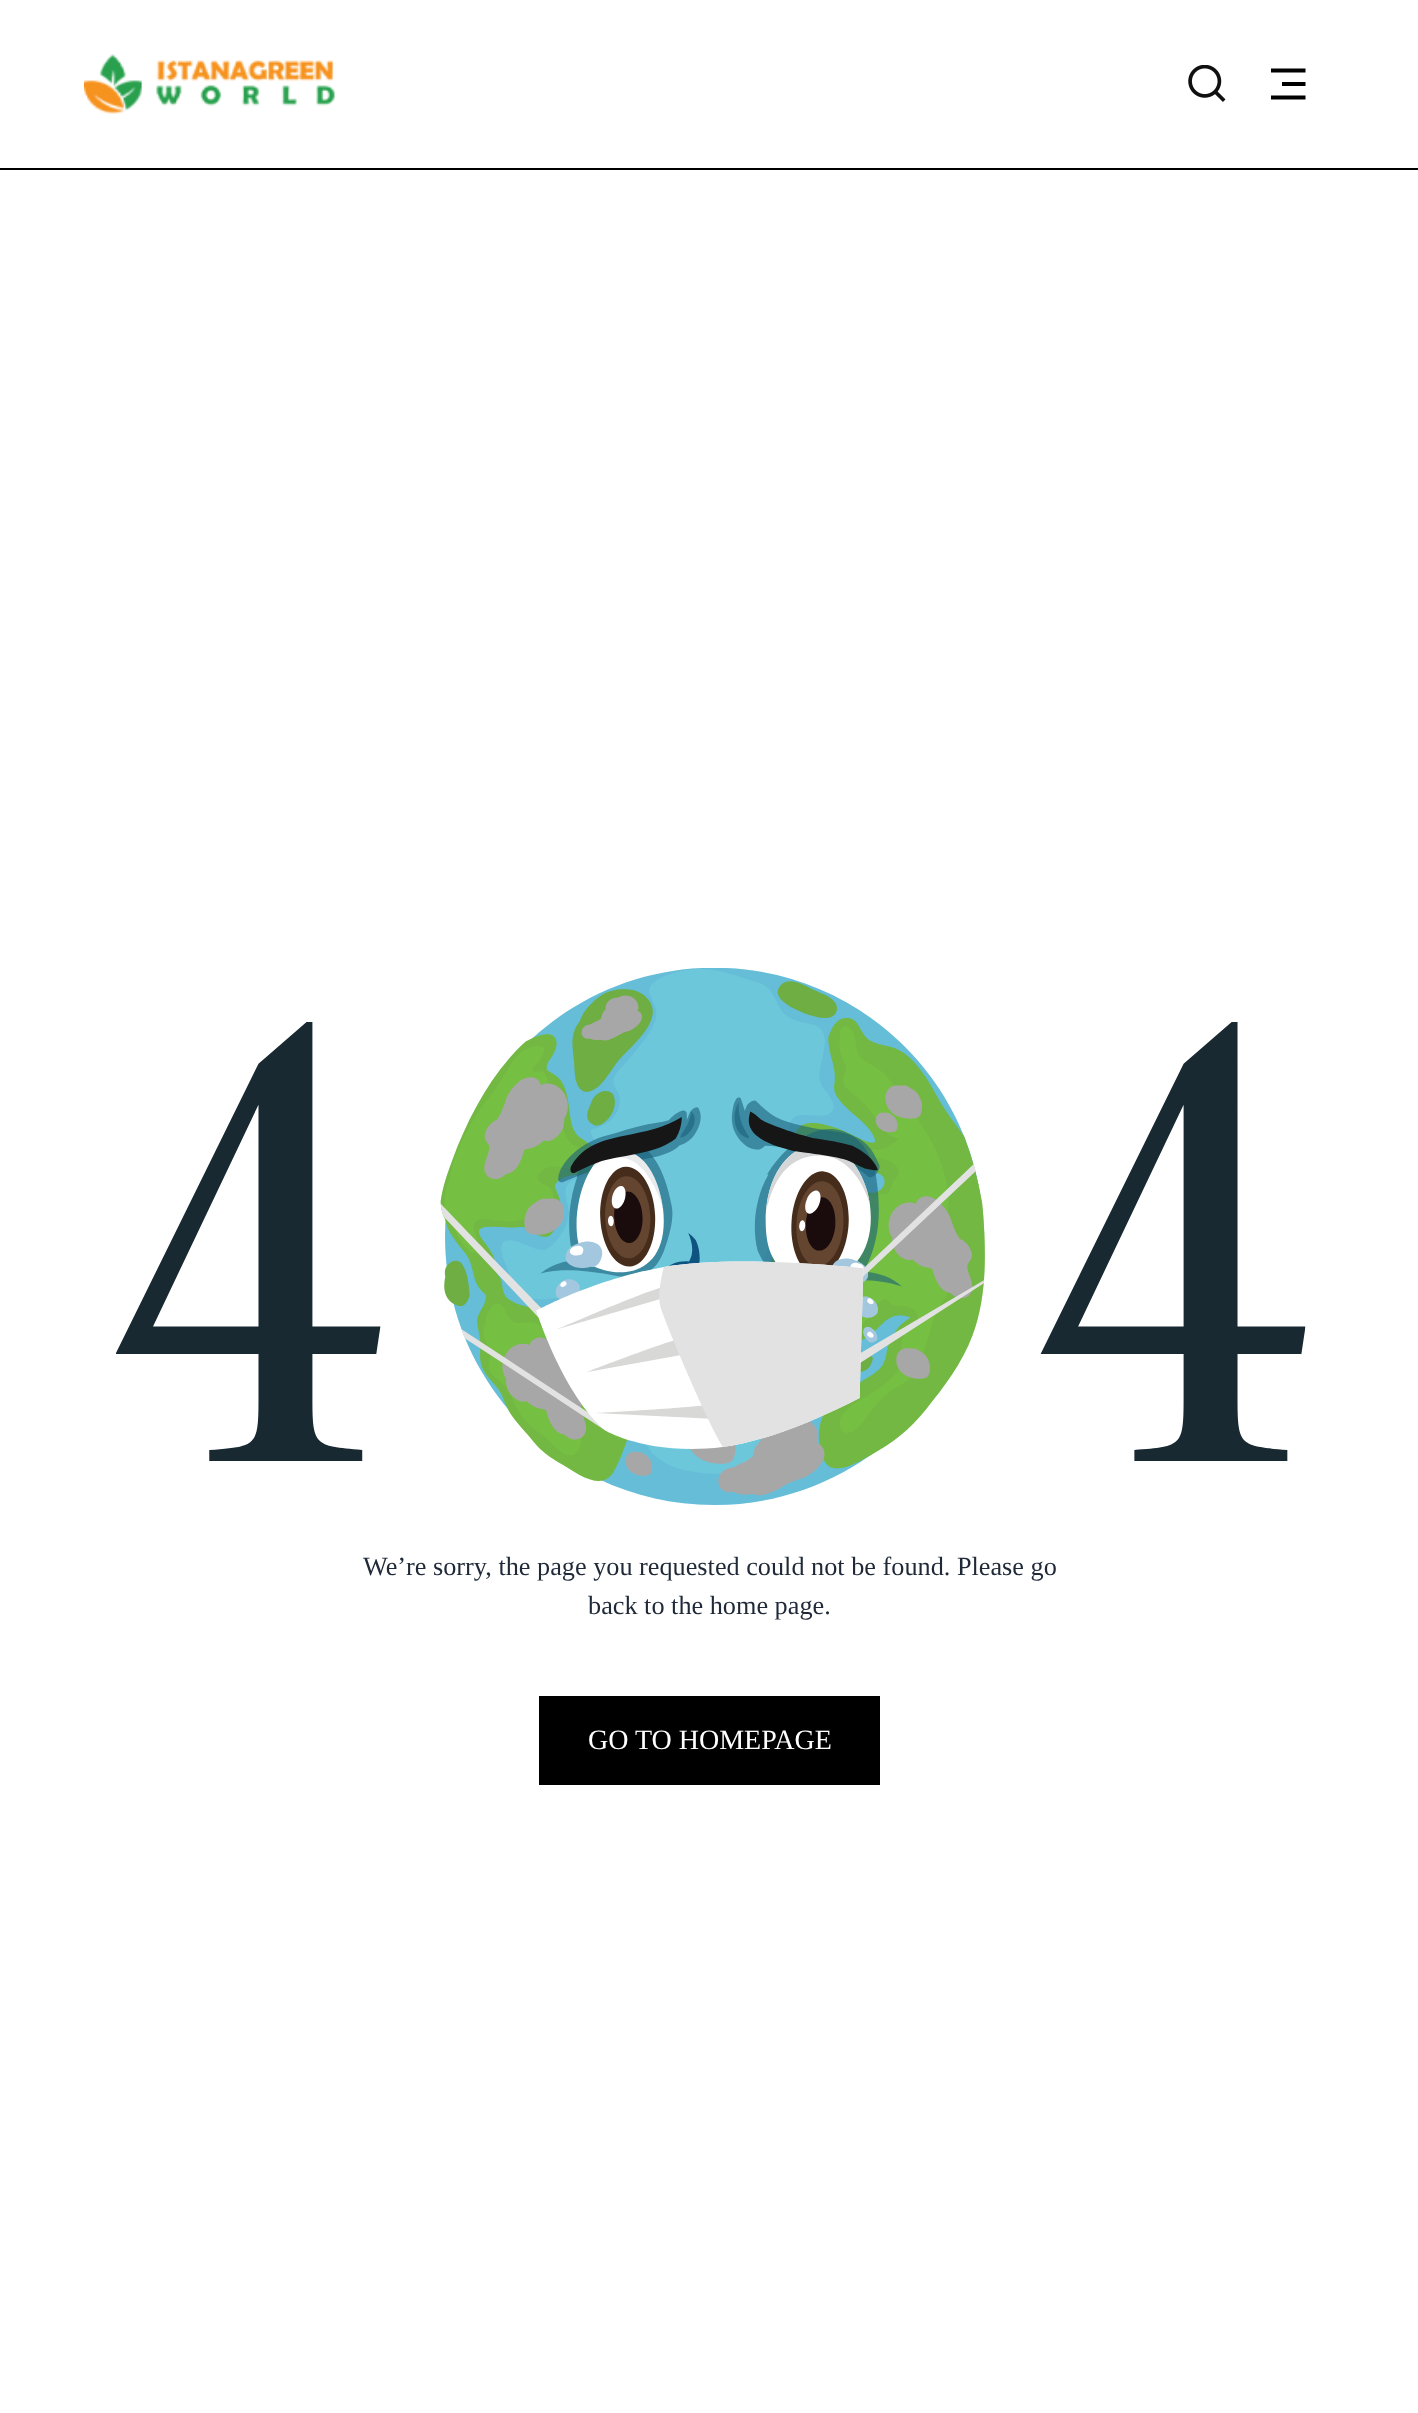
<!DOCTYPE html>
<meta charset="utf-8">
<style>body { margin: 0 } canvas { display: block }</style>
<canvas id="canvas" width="1418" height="2413"></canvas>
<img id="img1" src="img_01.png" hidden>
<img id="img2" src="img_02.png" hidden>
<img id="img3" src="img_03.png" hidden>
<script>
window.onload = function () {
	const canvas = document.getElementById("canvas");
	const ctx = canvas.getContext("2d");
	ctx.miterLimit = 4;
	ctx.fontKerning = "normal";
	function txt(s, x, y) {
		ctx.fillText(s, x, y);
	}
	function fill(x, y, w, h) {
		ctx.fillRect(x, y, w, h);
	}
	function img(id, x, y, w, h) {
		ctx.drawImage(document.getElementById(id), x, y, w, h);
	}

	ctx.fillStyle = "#FFFFFF";
	fill(0, 0, 1418, 2413);
	ctx.fillStyle = "#000000";
	fill(0, 168, 1418, 2);
	img("img1", 84, 54, 251, 60);
	img("img2", 1188, 65, 38, 37);
	ctx.save();
	ctx.beginPath();
	ctx.rect(1271, 67, 35, 35);
	ctx.clip();
	ctx.beginPath();
	ctx.moveTo(1305.5, 68.5);
	ctx.lineTo(1270.5, 68.5);
	ctx.lineTo(1270.5, 72.5);
	ctx.lineTo(1305.5, 72.5);
	ctx.closePath();
	ctx.moveTo(1305.5, 82);
	ctx.lineTo(1282, 82);
	ctx.lineTo(1282, 86);
	ctx.lineTo(1305.5, 86);
	ctx.closePath();
	ctx.moveTo(1305.5, 95.5);
	ctx.lineTo(1270.5, 95.5);
	ctx.lineTo(1270.5, 99.5);
	ctx.lineTo(1305.5, 99.5);
	ctx.closePath();
	ctx.fill();
	ctx.restore();
	img("img3", 116, 968, 1190, 537);
	fill(539, 1696, 341, 89);
	ctx.font = "26.25px Liberation Serif";
	ctx.fillStyle = "#1F2937";
	txt("We’re sorry, the page you requested could not be found. Please go", 363, 1575);
	txt("back to the home page.", 588, 1614);
	ctx.font = "28px Liberation Serif";
	ctx.fillStyle = "#FFFFFF";
	txt("GO TO HOMEPAGE", 588, 1749);
};
</script>
